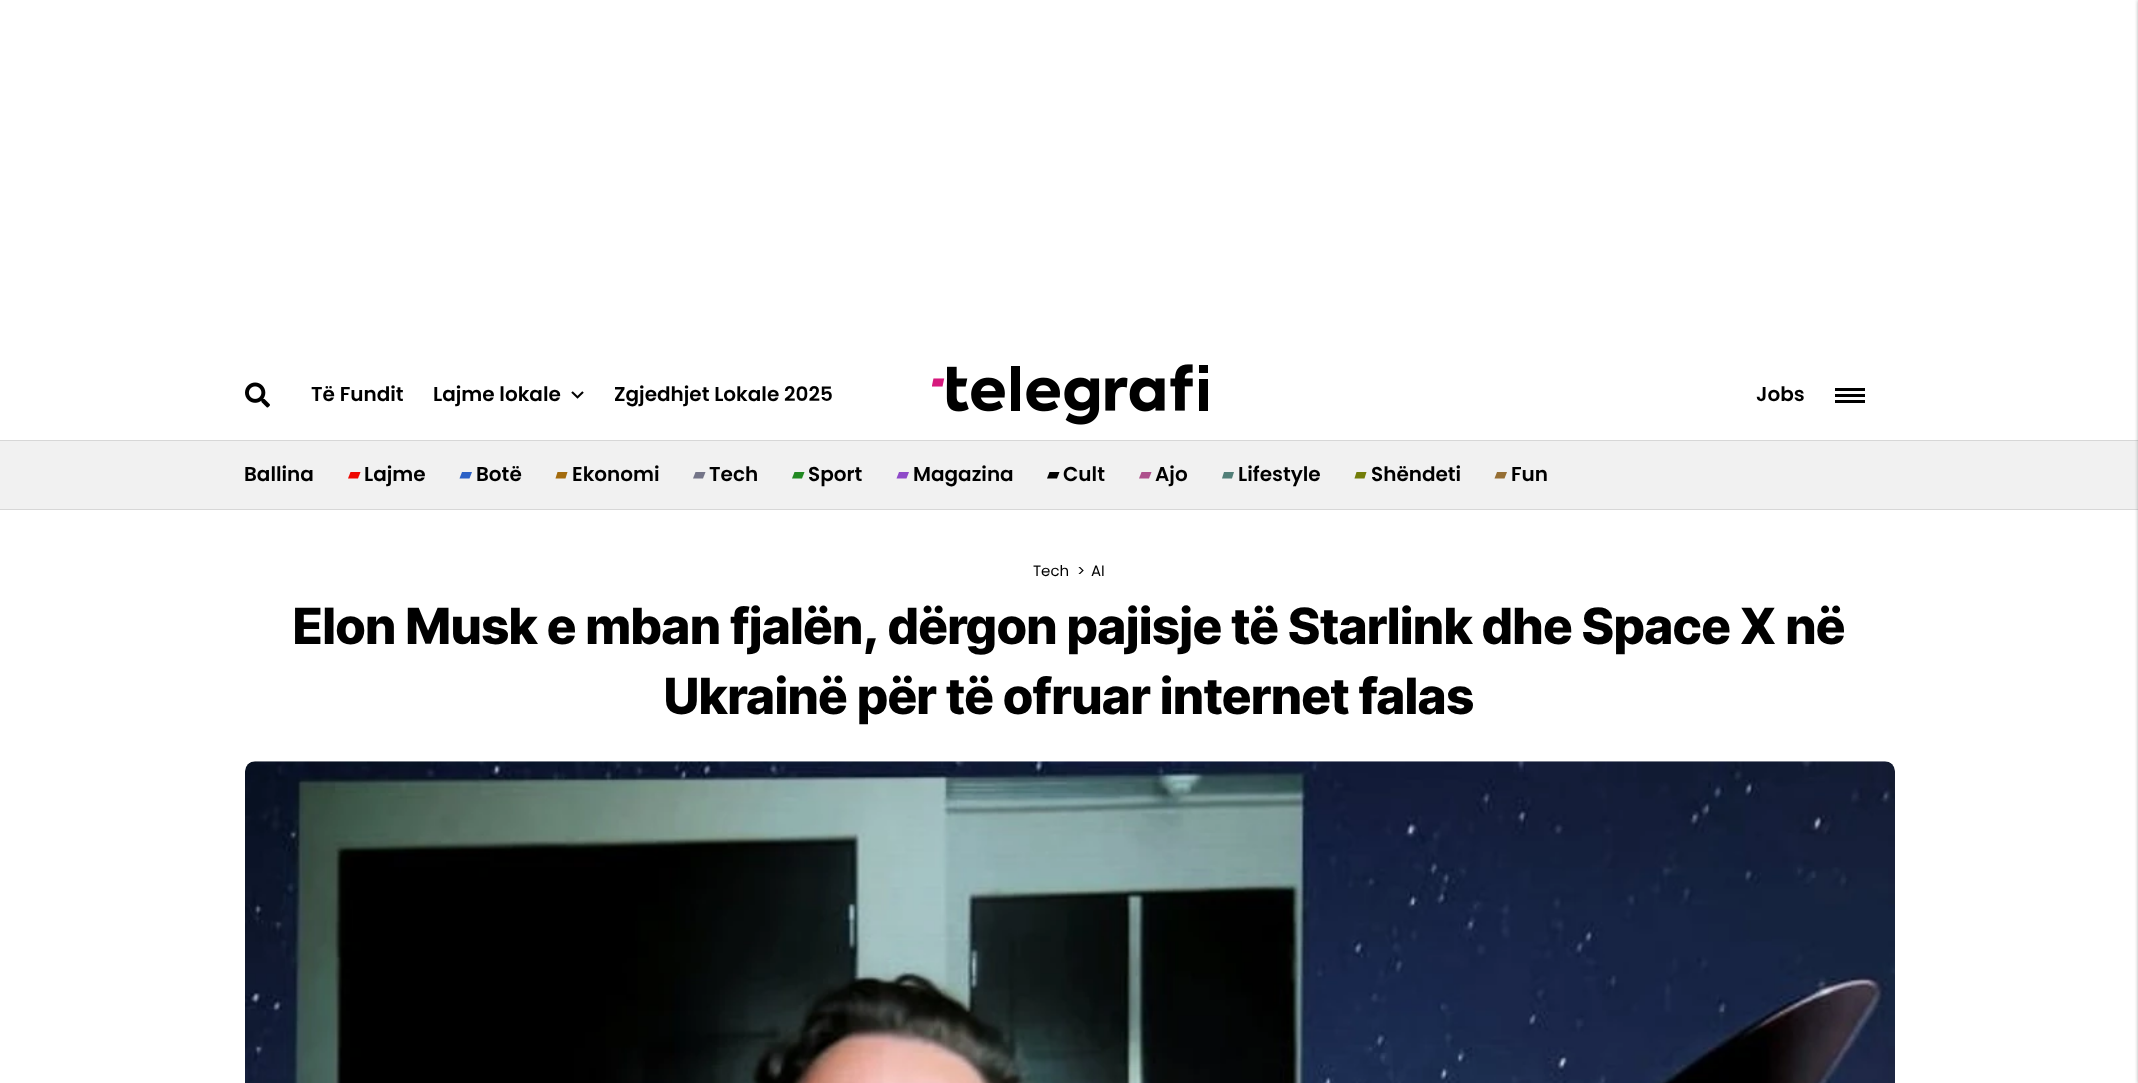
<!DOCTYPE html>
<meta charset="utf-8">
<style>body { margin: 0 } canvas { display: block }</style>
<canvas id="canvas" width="2138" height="1083"></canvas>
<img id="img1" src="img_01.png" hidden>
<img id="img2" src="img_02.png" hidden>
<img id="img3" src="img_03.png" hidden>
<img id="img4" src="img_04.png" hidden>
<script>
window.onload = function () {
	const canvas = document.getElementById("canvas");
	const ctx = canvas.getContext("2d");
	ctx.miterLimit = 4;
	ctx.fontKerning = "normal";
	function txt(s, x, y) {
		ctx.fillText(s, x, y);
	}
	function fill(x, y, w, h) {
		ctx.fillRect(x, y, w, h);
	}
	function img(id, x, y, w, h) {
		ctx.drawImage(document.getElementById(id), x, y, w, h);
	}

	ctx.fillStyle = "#FFFFFF";
	fill(0, 0, 2138, 1083);
	img("img1", 245, 382, 25, 26);
	img("img2", 571, 391, 13, 8);
	img("img3", 932, 364, 276, 61);
	ctx.fillStyle = "#000000";
	fill(1835, 388, 30, 3);
	fill(1835, 394, 30, 3);
	fill(1835, 400, 30, 3);
	ctx.fillStyle = "#F1F1F1";
	fill(0, 441, 2138, 68);
	ctx.fillStyle = "#D7D7D7";
	fill(0, 440, 2138, 1);
	fill(0, 509, 2138, 1);
	ctx.fillStyle = "#808080";
	ctx.filter = "blur(2px)";
	ctx.beginPath();
	ctx.rect(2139, 0, 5, 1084);
	ctx.fill();
	ctx.filter = "none";
	ctx.fillStyle = "#EE0700";
	ctx.beginPath();
	ctx.moveTo(350.5, 472);
	ctx.lineTo(360.5, 472);
	ctx.lineTo(358, 478.5);
	ctx.lineTo(348, 478.5);
	ctx.closePath();
	ctx.fill();
	ctx.fillStyle = "#2C61C6";
	ctx.beginPath();
	ctx.moveTo(462, 472);
	ctx.lineTo(472, 472);
	ctx.lineTo(469.5, 478.5);
	ctx.lineTo(459.5, 478.5);
	ctx.closePath();
	ctx.fill();
	ctx.fillStyle = "#A36B0D";
	ctx.beginPath();
	ctx.moveTo(557.5, 472);
	ctx.lineTo(567.5, 472);
	ctx.lineTo(565.5, 478.5);
	ctx.lineTo(555.5, 478.5);
	ctx.closePath();
	ctx.fill();
	ctx.fillStyle = "#747588";
	ctx.beginPath();
	ctx.moveTo(695.5, 472);
	ctx.lineTo(705.5, 472);
	ctx.lineTo(703, 478.5);
	ctx.lineTo(693, 478.5);
	ctx.closePath();
	ctx.fill();
	ctx.fillStyle = "#218922";
	ctx.beginPath();
	ctx.moveTo(794.5, 472);
	ctx.lineTo(804.5, 472);
	ctx.lineTo(802, 478.5);
	ctx.lineTo(792, 478.5);
	ctx.closePath();
	ctx.fill();
	ctx.fillStyle = "#8F4AC9";
	ctx.beginPath();
	ctx.moveTo(899, 472);
	ctx.lineTo(909, 472);
	ctx.lineTo(906.5, 478.5);
	ctx.lineTo(896.5, 478.5);
	ctx.closePath();
	ctx.fill();
	ctx.fillStyle = "#000000";
	ctx.beginPath();
	ctx.moveTo(1049.5, 472);
	ctx.lineTo(1059.5, 472);
	ctx.lineTo(1057, 478.5);
	ctx.lineTo(1047, 478.5);
	ctx.closePath();
	ctx.fill();
	ctx.fillStyle = "#AE518D";
	ctx.beginPath();
	ctx.moveTo(1141.5, 472);
	ctx.lineTo(1151.5, 472);
	ctx.lineTo(1149, 478.5);
	ctx.lineTo(1139, 478.5);
	ctx.closePath();
	ctx.fill();
	ctx.fillStyle = "#527F78";
	ctx.beginPath();
	ctx.moveTo(1224, 472);
	ctx.lineTo(1234, 472);
	ctx.lineTo(1232, 478.5);
	ctx.lineTo(1222, 478.5);
	ctx.closePath();
	ctx.fill();
	ctx.fillStyle = "#737D09";
	ctx.beginPath();
	ctx.moveTo(1356.5, 472);
	ctx.lineTo(1366.5, 472);
	ctx.lineTo(1364.5, 478.5);
	ctx.lineTo(1354.5, 478.5);
	ctx.closePath();
	ctx.fill();
	ctx.fillStyle = "#966F34";
	ctx.beginPath();
	ctx.moveTo(1497, 472);
	ctx.lineTo(1507, 472);
	ctx.lineTo(1504.5, 478.5);
	ctx.lineTo(1494.5, 478.5);
	ctx.closePath();
	ctx.fill();
	img("img4", 245, 761, 1650, 322);
	ctx.font = "600 20px Poppins";
	ctx.fillStyle = "#000000";
	txt("Të Fundit", 311, 401);
	txt("Lajme lokale", 433, 401);
	txt("Zgjedhjet Lokale 2025", 614, 401);
	txt("Jobs", 1756, 401);
	txt("Ballina", 244, 481);
	txt("Lajme", 364, 481);
	txt("Botë", 476, 481);
	txt("Ekonomi", 572, 481);
	txt("Tech", 709, 481);
	txt("Sport", 808, 481);
	txt("Magazina", 913, 481);
	txt("Cult", 1063, 481);
	txt("Ajo", 1155, 481);
	txt("Lifestyle", 1238, 481);
	txt("Shëndeti", 1371, 481);
	txt("Fun", 1511, 481);
	ctx.font = "15px Poppins";
	txt("Tech", 1033, 576);
	txt(">", 1077, 576);
	txt("AI", 1091, 576);
	ctx.letterSpacing = "0.25px";
	ctx.font = "800 50px Inter Tight";
	txt("Elon Musk e mban fjalën, dërgon pajisje të Starlink dhe Space X në", 293, 644);
	txt("Ukrainë për të ofruar internet falas", 664, 714);
};
</script>
